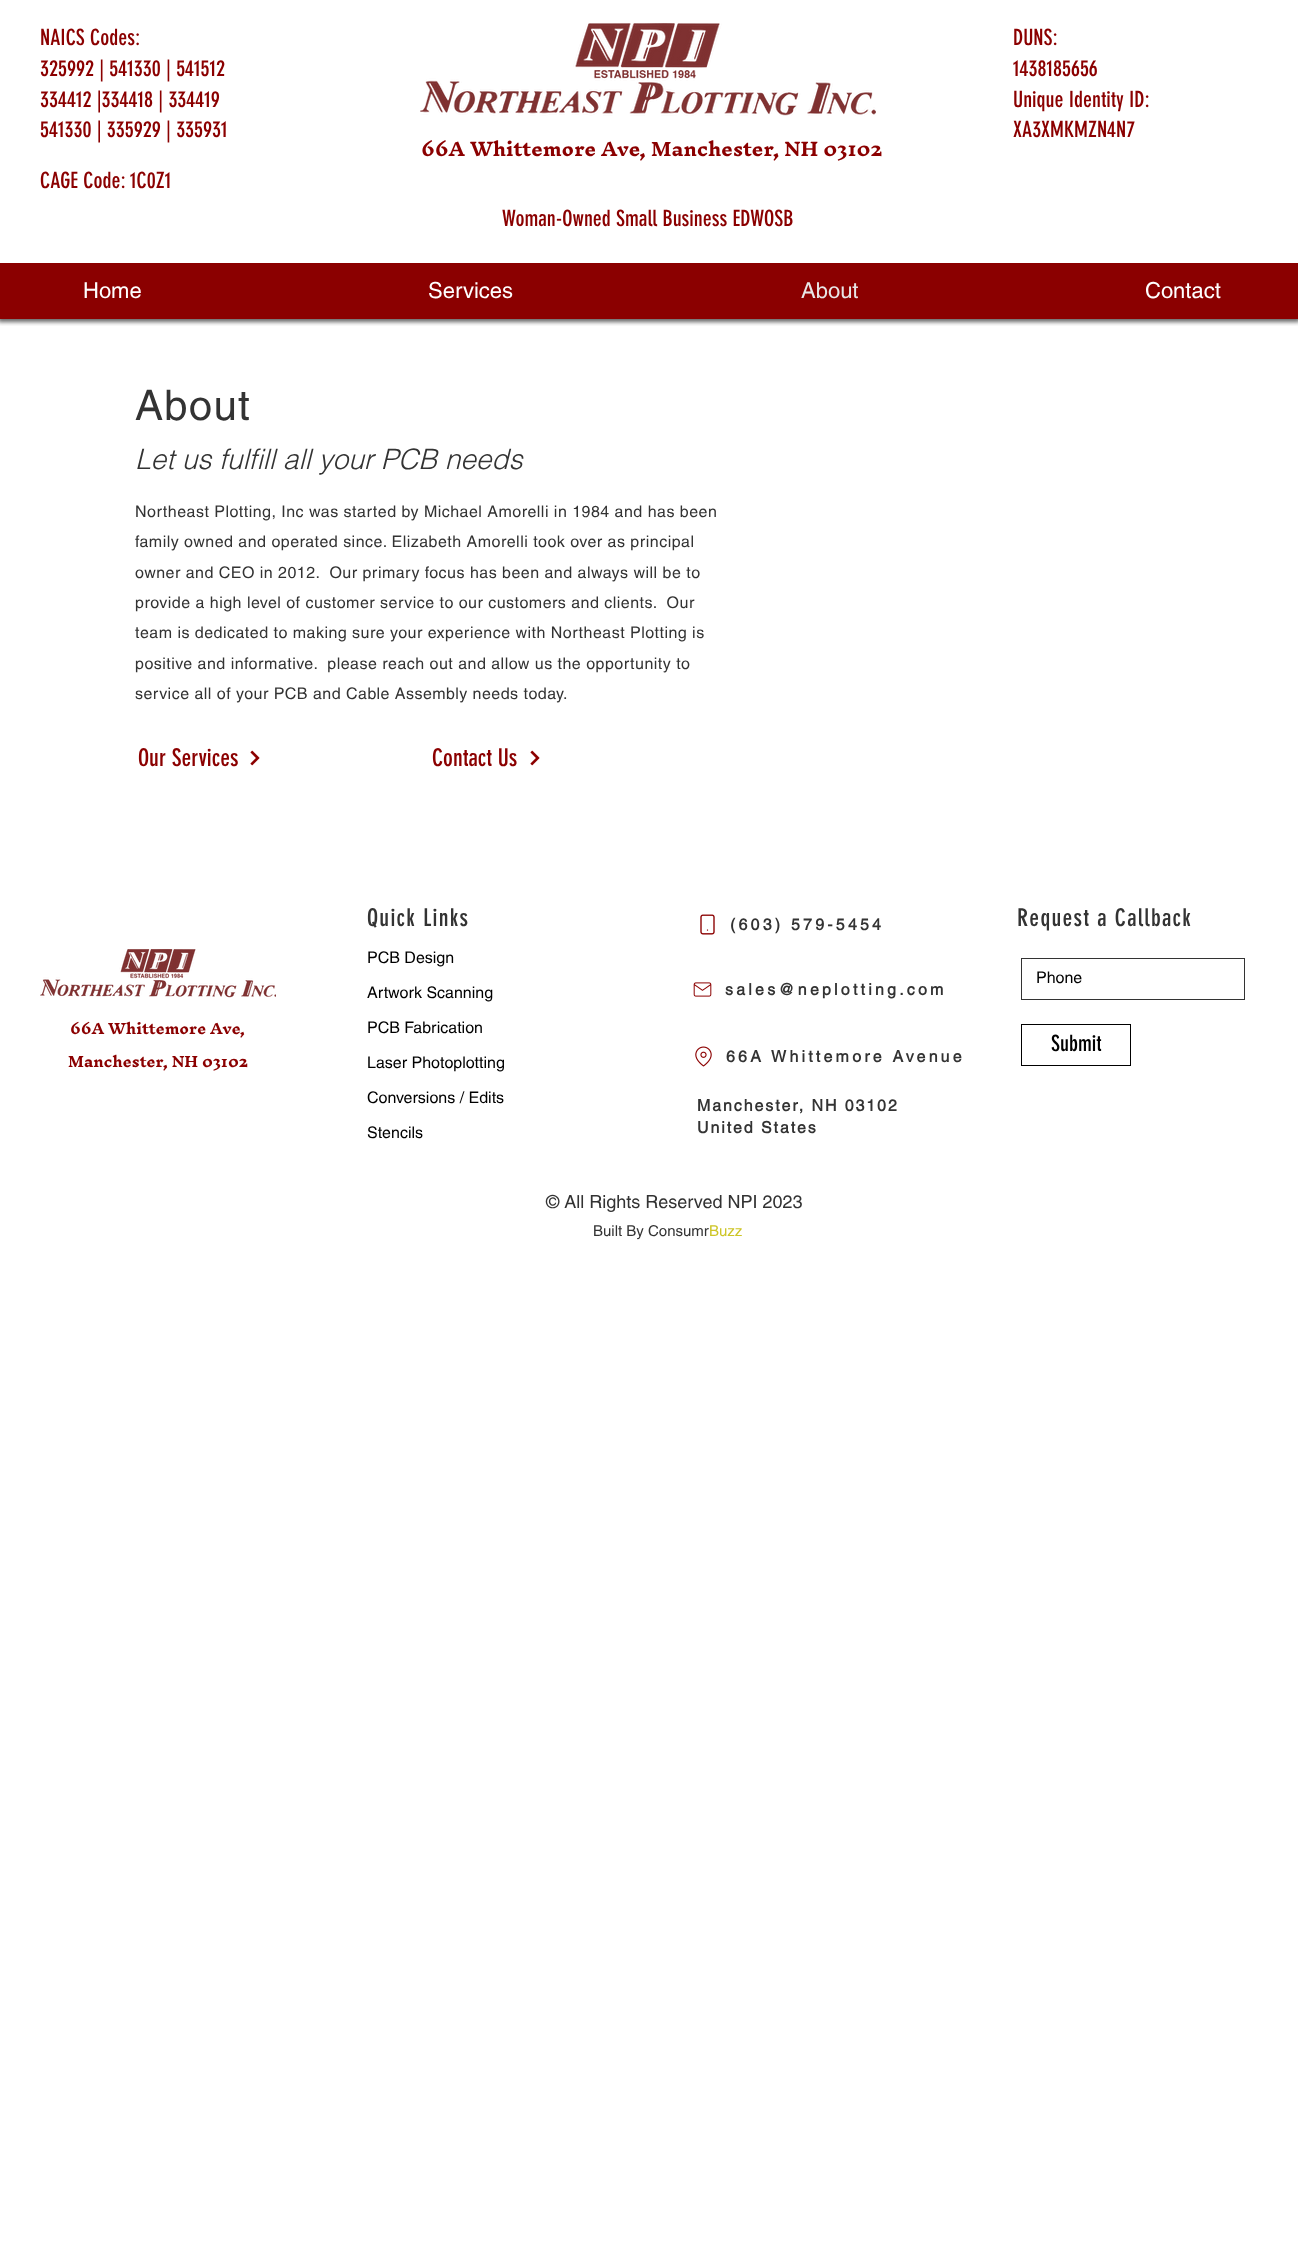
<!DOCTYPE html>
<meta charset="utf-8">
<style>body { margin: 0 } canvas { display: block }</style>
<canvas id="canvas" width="1298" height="2246"></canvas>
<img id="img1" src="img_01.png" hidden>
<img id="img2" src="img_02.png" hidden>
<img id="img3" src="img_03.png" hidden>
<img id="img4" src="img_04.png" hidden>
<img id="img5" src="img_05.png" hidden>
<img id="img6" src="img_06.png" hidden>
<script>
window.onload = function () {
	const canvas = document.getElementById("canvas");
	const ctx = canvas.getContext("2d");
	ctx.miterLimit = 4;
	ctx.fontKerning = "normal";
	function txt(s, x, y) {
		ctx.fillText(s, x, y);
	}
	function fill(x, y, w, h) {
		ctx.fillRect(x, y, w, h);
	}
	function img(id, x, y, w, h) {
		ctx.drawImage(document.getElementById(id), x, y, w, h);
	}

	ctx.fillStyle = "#FFFFFF";
	fill(0, 0, 1298, 2246);
	ctx.save();
	ctx.beginPath();
	ctx.rect(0, 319, 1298, 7);
	ctx.clip();
	ctx.fillStyle = "rgba(0, 0, 0, 0.6)";
	ctx.filter = "blur(2px)";
	ctx.beginPath();
	ctx.rect(-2, -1, 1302, 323);
	ctx.fill();
	ctx.filter = "none";
	ctx.restore();
	img("img1", 420, 23, 456, 93);
	ctx.fillStyle = "#8B0000";
	fill(0, 263, 1298, 56);
	img("img2", 250, 750, 10, 16);
	img("img2", 530, 750, 10, 16);
	img("img3", 40, 949, 236, 49);
	img("img4", 700, 914, 15, 21);
	img("img5", 693, 982, 19, 15);
	img("img6", 695, 1046, 17, 21);
	ctx.strokeStyle = "#333333";
	ctx.strokeRect(1021.5, 958.5, 223, 41);
	ctx.strokeStyle = "#000000";
	ctx.strokeRect(1021.5, 1024.5, 109, 41);
	ctx.font = "22px 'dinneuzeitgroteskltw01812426'";
	txt("NAICS Codes:", 40, 45);
	txt("325992 | 541330 | 541512", 40, 76);
	txt("334412 |334418 | 334419", 40, 107);
	txt("541330 | 335929 | 335931", 40, 137);
	txt("CAGE Code:", 40, 188);
	txt("1C0Z1", 130, 188);
	txt("DUNS:", 1013, 45);
	txt("1438185656", 1013, 76);
	txt("Unique Identity ID:", 1013, 107);
	txt("XA3XMKMZN4N7", 1013, 137);
	ctx.font = "bold 18px Inknut Antiqua";
	txt("66A Whittemore Ave, Manchester, NH 03102", 421, 156);
	ctx.font = "22px 'dinneuzeitgroteskltw01812426'";
	txt("Woman-Owned Small Business EDWOSB", 502, 226);
	ctx.font = "22px helvetica";
	ctx.fillStyle = "#FFFFFF";
	txt("Home", 83, 298);
	txt("Services", 428, 298);
	ctx.fillStyle = "#E8E6E6";
	txt("About", 801, 298);
	ctx.fillStyle = "#FFFFFF";
	txt("Contact", 1145, 298);
	ctx.letterSpacing = "1.25px";
	ctx.font = "42px helvetica";
	ctx.fillStyle = "#333333";
	txt("About", 135, 420);
	ctx.letterSpacing = "0px";
	ctx.font = "italic 300 28px helvetica";
	txt("Let us fulfill all your PCB needs", 135, 469);
	ctx.letterSpacing = "0.48px";
	ctx.font = "16px helvetica";
	txt("Northeast Plotting, Inc was started by Michael Amorelli in 1984 and has been", 135, 517);
	txt("family owned and operated since. Elizabeth Amorelli took over as principal", 135, 547);
	txt("owner and CEO in 2012.  Our primary focus has been and always will be to", 135, 578);
	txt("provide a high level of customer service to our customers and clients.  Our", 135, 608);
	txt("team is dedicated to making sure your experience with Northeast Plotting is", 135, 638);
	txt("positive and informative.  please reach out and allow us the opportunity to", 135, 669);
	txt("service all of your PCB and Cable Assembly needs today.", 135, 699);
	ctx.letterSpacing = "0px";
	ctx.font = "24px 'dinneuzeitgroteskltw01812426'";
	ctx.fillStyle = "#8B0000";
	txt("Our Services", 138, 766);
	txt("Contact Us", 432, 766);
	ctx.font = "bold 14px Inknut Antiqua";
	txt("66A Whittemore Ave,", 70, 1034);
	txt("Manchester, NH 03102", 68, 1067);
	ctx.letterSpacing = "1.25px";
	ctx.font = "24px 'dinneuzeitgroteskltw01812426'";
	ctx.fillStyle = "#333333";
	txt("Quick Links", 367, 926);
	ctx.letterSpacing = "0px";
	ctx.font = "16px helvetica";
	ctx.fillStyle = "#000000";
	txt("PCB Design", 367, 963);
	txt("Artwork Scanning", 367, 998);
	txt("PCB Fabrication", 367, 1033);
	txt("Laser Photoplotting", 367, 1068);
	txt("Conversions / Edits", 367, 1103);
	txt("Stencils", 367, 1138);
	ctx.letterSpacing = "3.2px";
	ctx.font = "bold 16px helvetica";
	ctx.fillStyle = "#333333";
	txt("(603) 579-5454", 730, 930);
	txt("sales@neplotting.com", 725, 995);
	txt("66A Whittemore Avenue", 726, 1062);
	ctx.letterSpacing = "1.9px";
	txt("Manchester, NH 03102", 697, 1111);
	txt("United States", 697, 1133);
	ctx.letterSpacing = "1.25px";
	ctx.font = "24px 'dinneuzeitgroteskltw01812426'";
	txt("Request a Callback", 1017, 926);
	ctx.letterSpacing = "0px";
	ctx.font = "16px helvetica";
	ctx.fillStyle = "#000000";
	txt("Phone", 1036, 983);
	ctx.font = "22px 'dinneuzeitgroteskltw01812426'";
	txt("Submit", 1051, 1051);
	ctx.font = "18px helvetica";
	ctx.fillStyle = "#333333";
	txt("© All Rights Reserved NPI 2023", 546, 1208);
	ctx.font = "15px helvetica";
	txt("Built By Consumr", 593, 1236);
	ctx.fillStyle = "#CDC527";
	txt("Buzz", 709, 1236);
};
</script>
